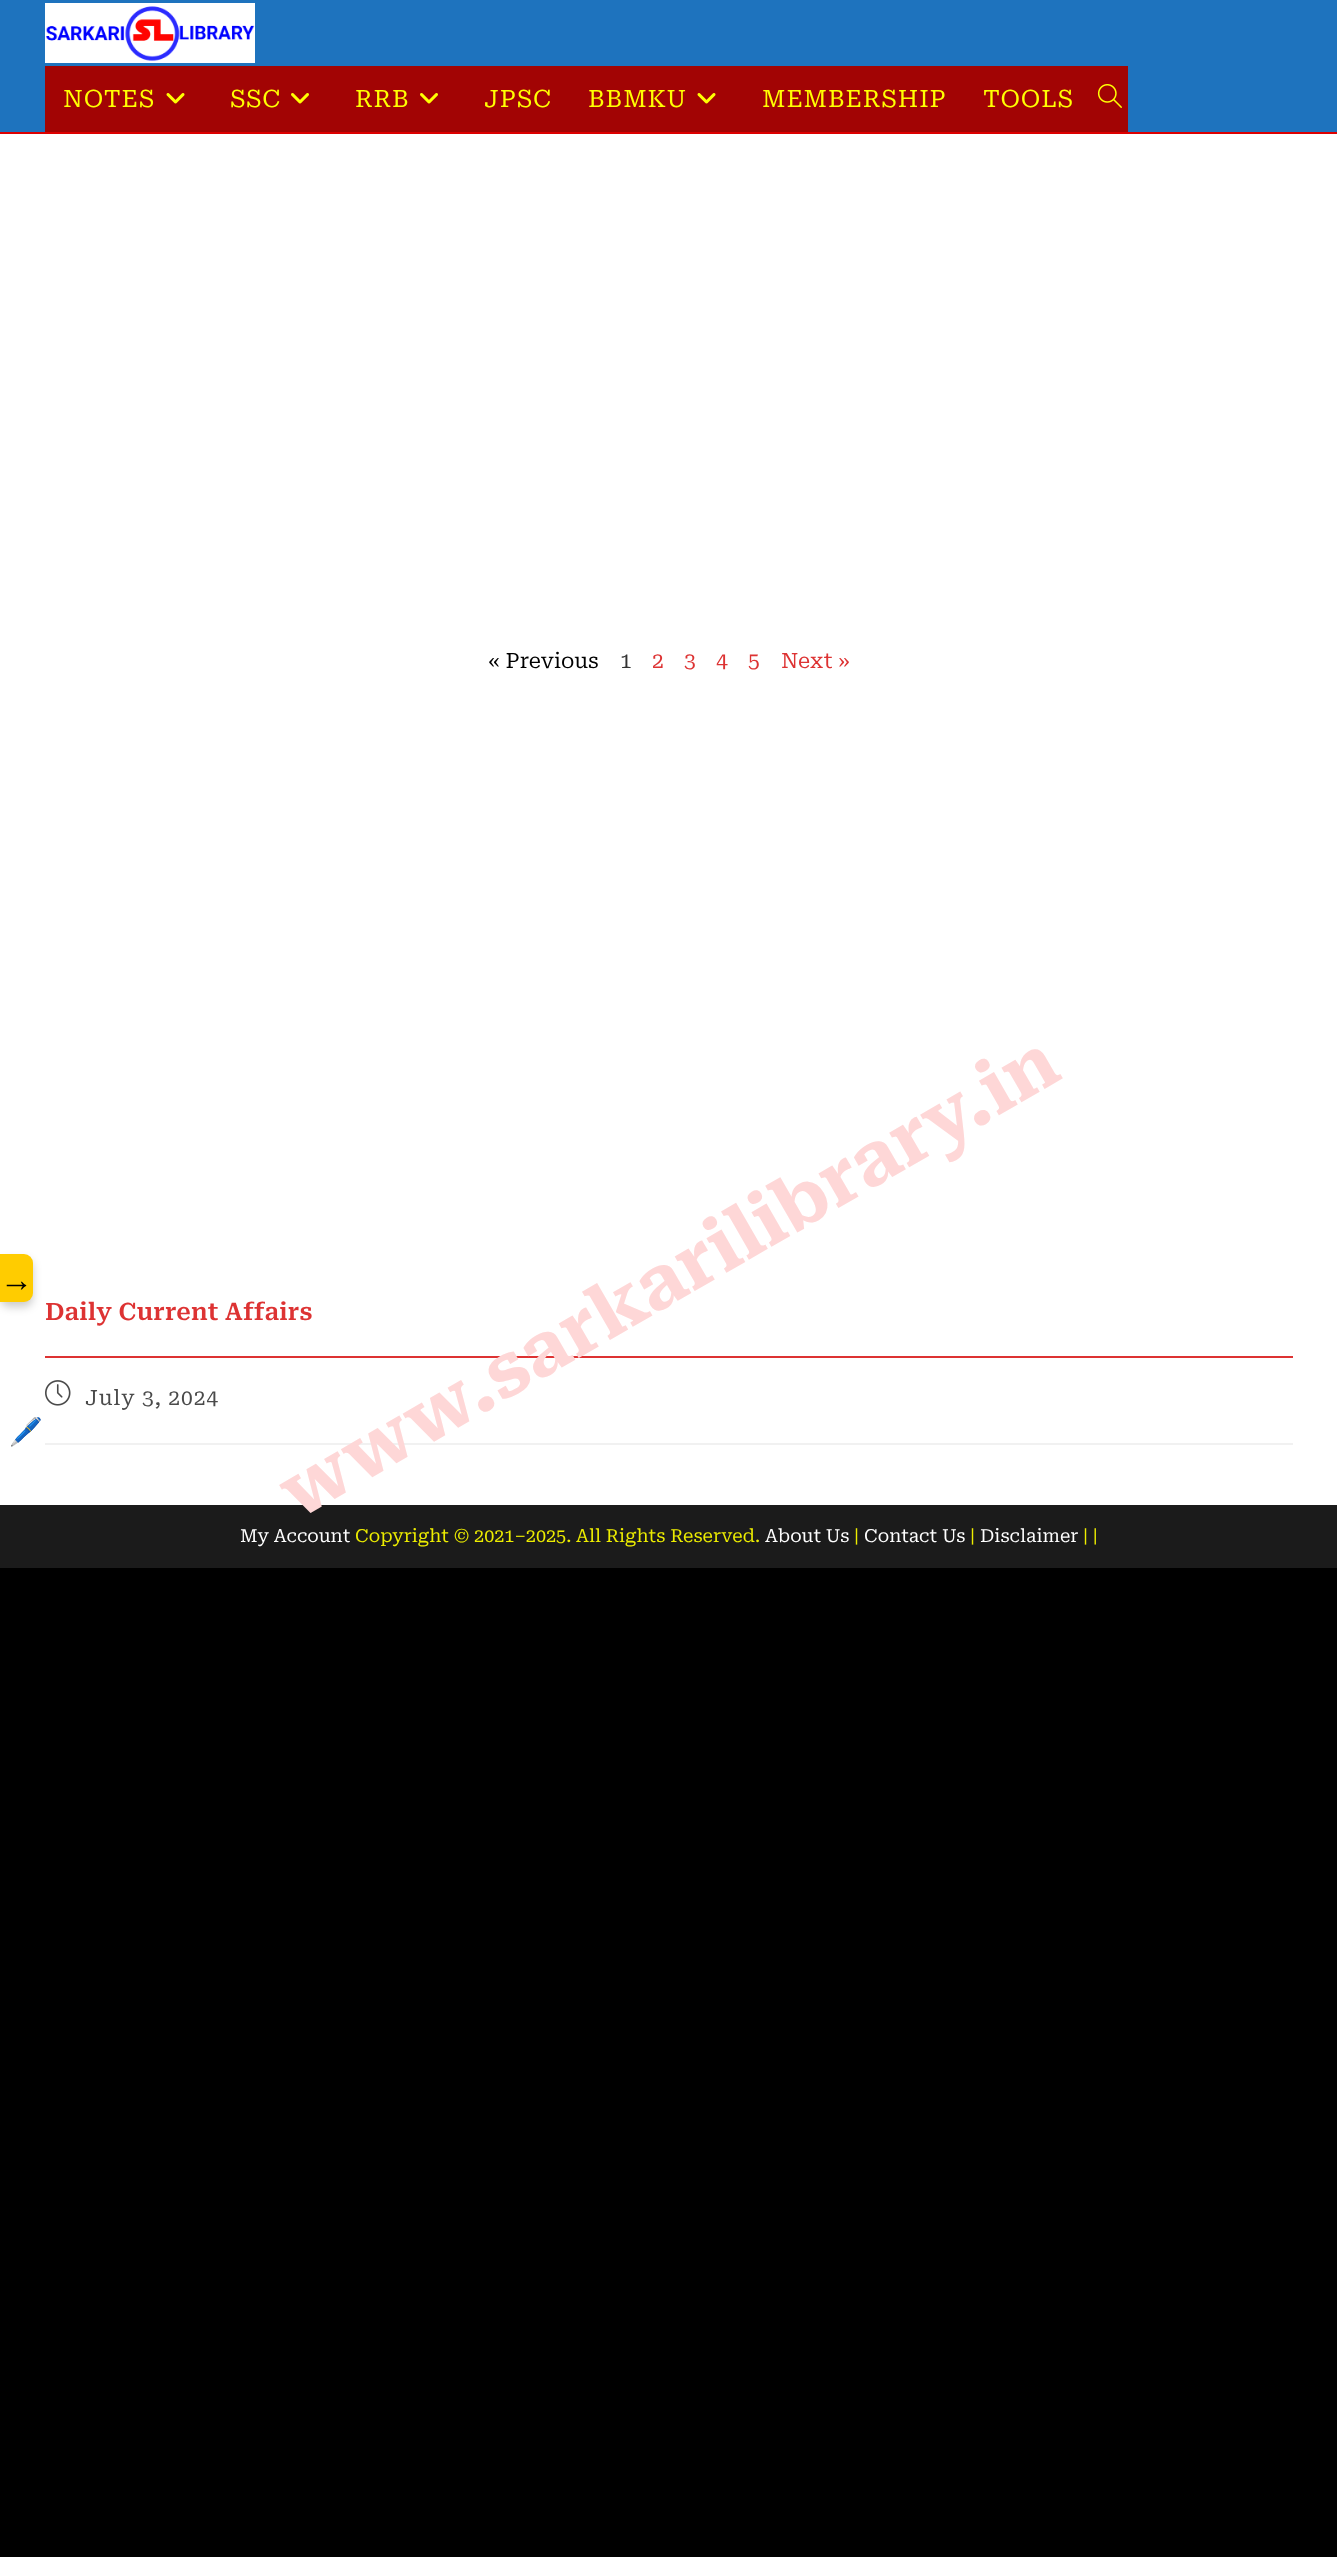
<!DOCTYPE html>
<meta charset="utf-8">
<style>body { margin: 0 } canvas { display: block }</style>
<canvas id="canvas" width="1337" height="2557"></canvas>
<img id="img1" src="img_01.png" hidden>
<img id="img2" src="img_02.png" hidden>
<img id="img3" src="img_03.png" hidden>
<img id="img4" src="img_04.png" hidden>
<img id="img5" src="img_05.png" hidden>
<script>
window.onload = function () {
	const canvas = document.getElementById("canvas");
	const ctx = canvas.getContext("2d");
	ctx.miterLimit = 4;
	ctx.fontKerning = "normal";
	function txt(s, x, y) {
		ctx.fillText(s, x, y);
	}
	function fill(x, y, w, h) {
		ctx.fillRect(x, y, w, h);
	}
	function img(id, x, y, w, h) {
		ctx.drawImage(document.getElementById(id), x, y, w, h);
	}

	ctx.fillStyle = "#000000";
	fill(0, 0, 1337, 2557);
	ctx.fillStyle = "#FFFFFF";
	fill(0, 134, 1337, 1371);
	ctx.fillStyle = "#1E73BE";
	fill(0, 0, 1337, 132);
	ctx.fillStyle = "#DD0000";
	fill(0, 132, 1337, 2);
	img("img1", 45, 3, 210, 60);
	ctx.fillStyle = "#A20404";
	fill(45, 66, 1083, 66);
	img("img2", 166, 93, 19, 11);
	img("img3", 291, 93, 18, 11);
	img("img3", 420, 93, 18, 11);
	img("img2", 697, 93, 19, 11);
	img("img4", 1097, 84, 25, 24);
	ctx.fillStyle = "#DD3333";
	fill(45, 1356, 1248, 2);
	ctx.fillStyle = "#F1F1F1";
	fill(45, 1443, 1248, 2);
	img("img5", 45, 1380, 26, 26);
	ctx.fillStyle = "#1B1B1B";
	fill(0, 1505, 1337, 63);
	ctx.fillStyle = "rgba(0, 0, 0, 0.2)";
	ctx.filter = "blur(4.5px)";
	ctx.beginPath();
	ctx.roundRect(0, 1259, 33, 48, 9);
	ctx.fill();
	ctx.filter = "none";
	ctx.fillStyle = "#FFCC00";
	ctx.beginPath();
	ctx.roundRect(0, 1254, 33, 48, [0, 9, 9, 0]);
	ctx.fill();
	ctx.letterSpacing = "0.9px";
	ctx.font = "24px Roboto Serif";
	ctx.fillStyle = "#FFFF02";
	txt("NOTES", 63, 107);
	txt("SSC", 230, 107);
	txt("RRB", 355, 107);
	txt("JPSC", 484, 107);
	txt("BBMKU", 588, 107);
	txt("MEMBERSHIP", 762, 107);
	txt("TOOLS", 983, 107);
	ctx.letterSpacing = "0px";
	ctx.font = "21px Roboto Serif";
	ctx.fillStyle = "#000000";
	txt("« Previous", 488, 668);
	ctx.fillStyle = "#333333";
	txt("1", 620, 668);
	ctx.fillStyle = "#DD3333";
	txt("2", 652, 668);
	txt("3", 684, 668);
	txt("4", 716, 668);
	txt("5", 748, 668);
	txt("Next »", 781, 668);
	ctx.letterSpacing = "0.15px";
	ctx.font = "600 24px Roboto Serif";
	txt("Daily Current Affairs", 45, 1320);
	ctx.letterSpacing = "0.9px";
	ctx.font = "21px Roboto Serif";
	ctx.fillStyle = "#4A4A4A";
	txt("July 3, 2024", 85, 1405);
	ctx.letterSpacing = "0px";
	ctx.font = "18px Roboto Serif";
	ctx.fillStyle = "#FFFFFF";
	txt("My Account", 240, 1542);
	ctx.fillStyle = "#EDED00";
	txt("Copyright © 2021–2025. All Rights Reserved.", 355, 1542);
	ctx.fillStyle = "#FFFFFF";
	txt("About Us", 765, 1542);
	ctx.fillStyle = "#EDED00";
	txt("|", 854, 1542);
	ctx.fillStyle = "#FFFFFF";
	txt("Contact Us", 864, 1542);
	ctx.fillStyle = "#EDED00";
	txt("|", 970, 1542);
	ctx.fillStyle = "#FFFFFF";
	txt("Disclaimer", 980, 1542);
	ctx.fillStyle = "#EDED00";
	txt("| |", 1083, 1542);
	ctx.font = "33px Liberation Serif";
	ctx.fillStyle = "#000000";
	txt("→", 0, 1291);
	ctx.font = "bold 73.6px Roboto Serif";
	ctx.fillStyle = "#FED7D7";
	ctx.save();
	ctx.translate(298, 1520);
	ctx.rotate(-30 * Math.PI / 180);
	ctx.fillText("www.sarkarilibrary.in", 0, 0);
	ctx.restore();
	ctx.font = "27px Noto Color Emoji";
	ctx.fillStyle = "#FF0000";
	txt("🖊️", 9, 1441);
};
</script>
